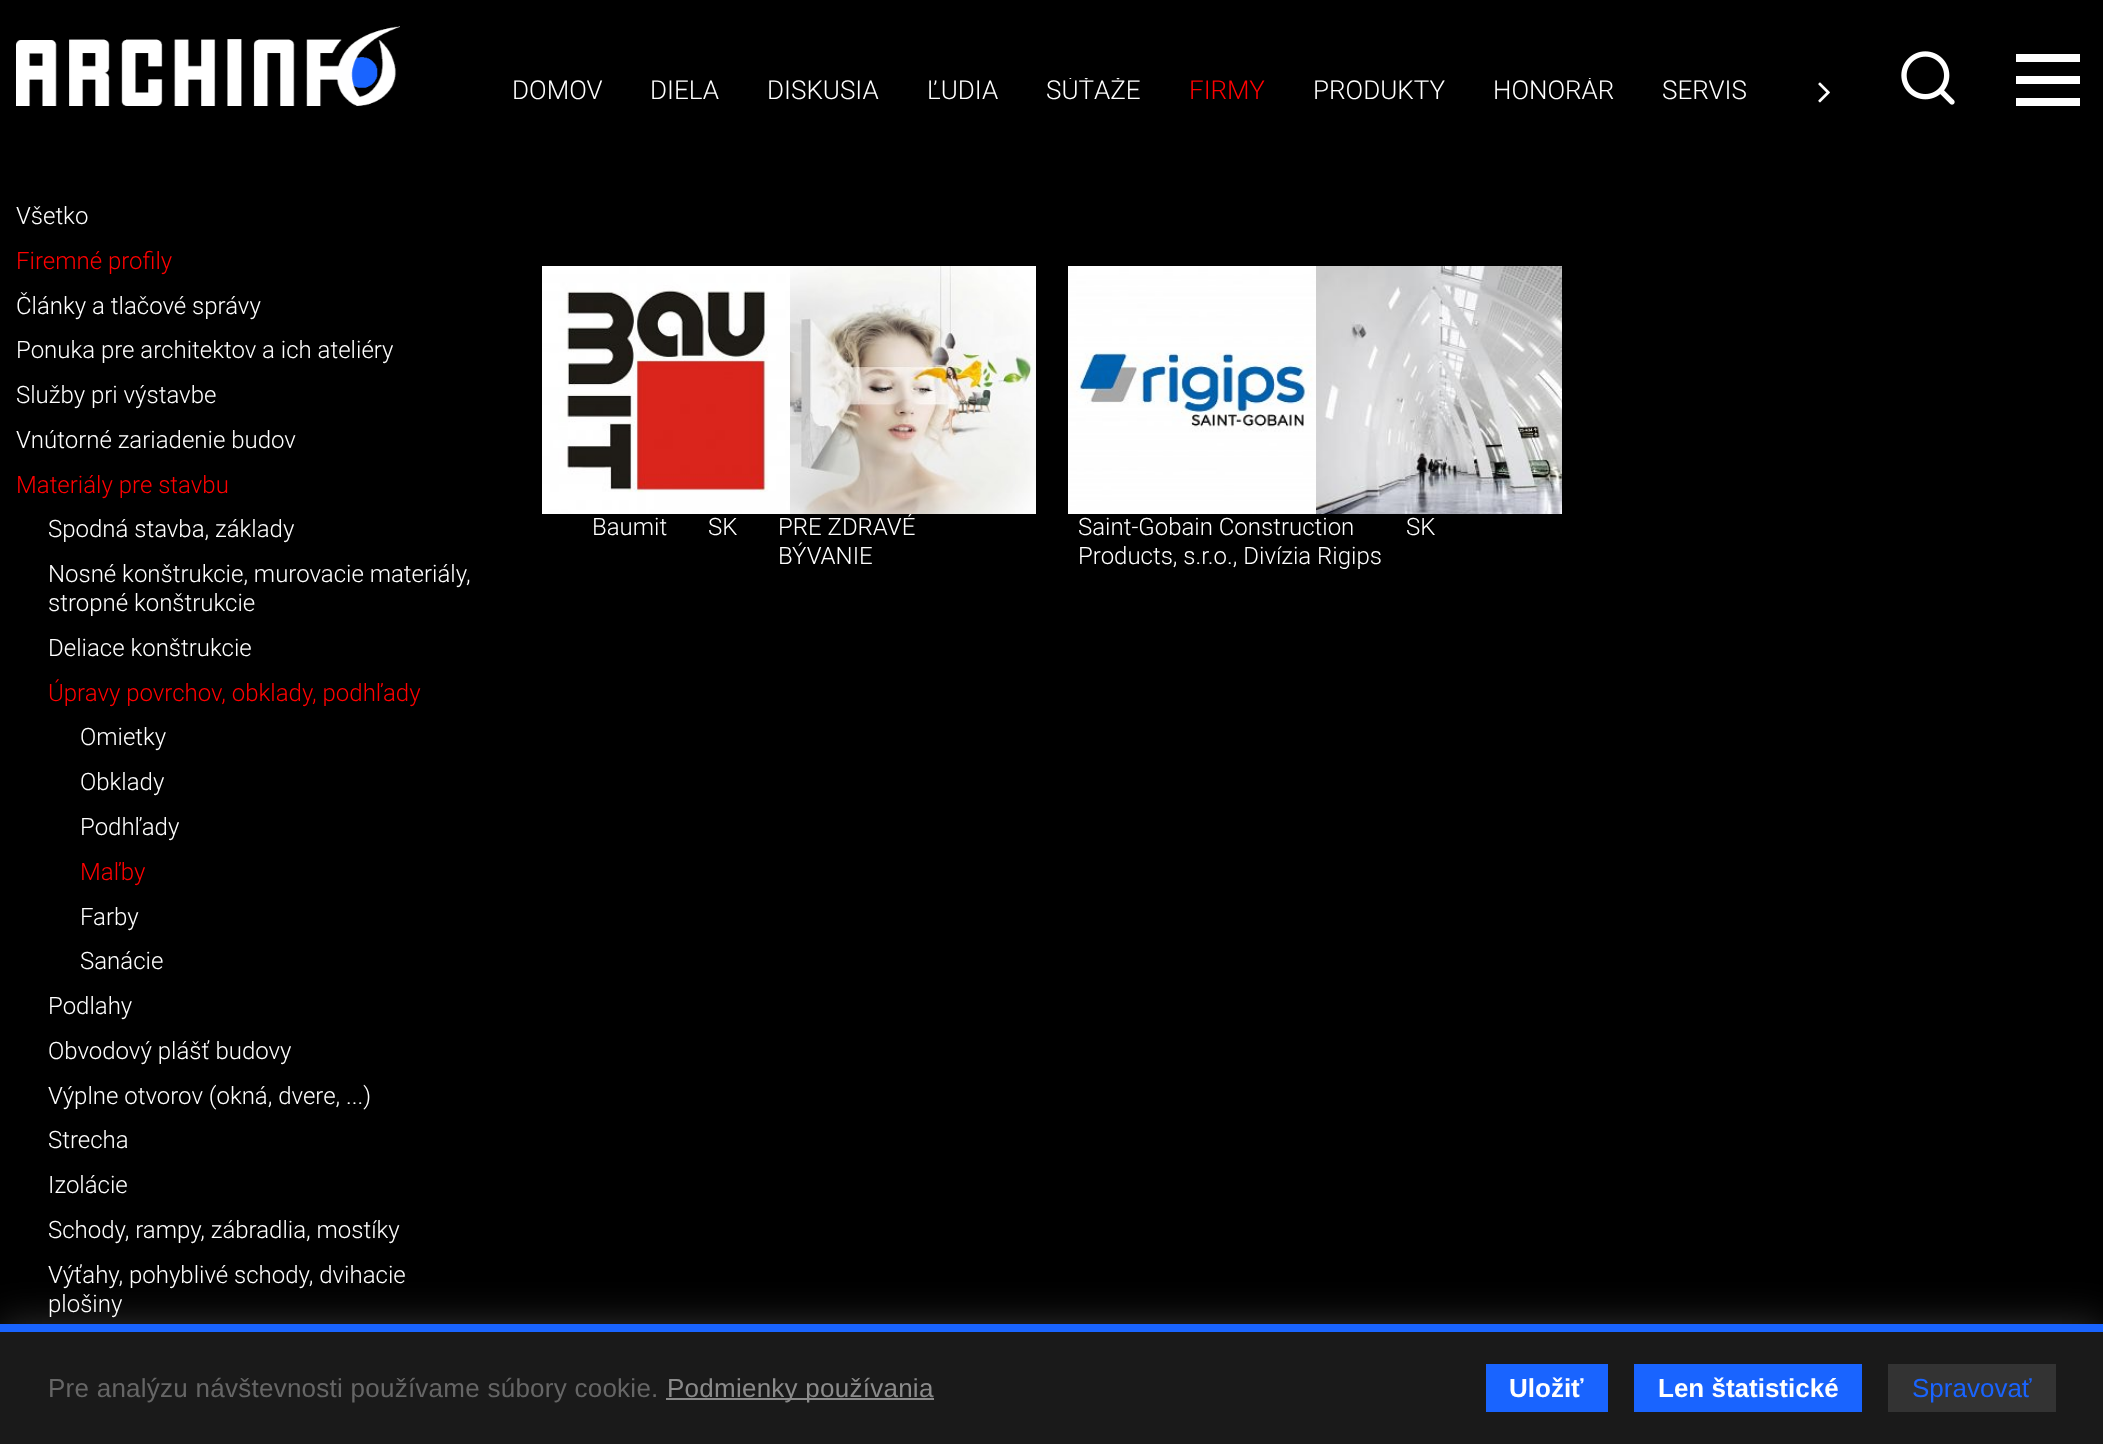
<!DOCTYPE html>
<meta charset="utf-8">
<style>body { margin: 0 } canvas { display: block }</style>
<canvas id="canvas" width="2103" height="1444"></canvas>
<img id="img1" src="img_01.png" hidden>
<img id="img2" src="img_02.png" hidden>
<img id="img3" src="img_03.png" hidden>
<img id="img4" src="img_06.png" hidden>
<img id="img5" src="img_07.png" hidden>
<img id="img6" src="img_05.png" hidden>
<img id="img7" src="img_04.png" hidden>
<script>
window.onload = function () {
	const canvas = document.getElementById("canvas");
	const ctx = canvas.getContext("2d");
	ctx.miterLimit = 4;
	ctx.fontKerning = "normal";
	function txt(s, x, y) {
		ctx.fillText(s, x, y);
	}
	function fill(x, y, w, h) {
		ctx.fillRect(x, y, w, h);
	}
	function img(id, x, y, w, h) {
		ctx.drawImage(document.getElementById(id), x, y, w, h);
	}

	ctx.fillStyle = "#000000";
	fill(0, 0, 2103, 1444);
	img("img1", 16, 26, 384, 80);
	img("img2", 1818, 82, 12, 21);
	img("img3", 1901, 51, 54, 54);
	ctx.fillStyle = "#FFFFFF";
	fill(2016, 54, 64, 8);
	fill(2016, 76, 64, 8);
	fill(2016, 98, 64, 8);
	img("img4", 1068, 266, 248, 248);
	img("img5", 1316, 266, 246, 248);
	ctx.fillStyle = "rgba(100, 100, 100, 0.5)";
	ctx.filter = "blur(20px)";
	ctx.beginPath();
	ctx.rect(0, 1324, 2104, 120);
	ctx.fill();
	ctx.filter = "none";
	ctx.fillStyle = "#1A1A1A";
	fill(0, 1332, 2103, 112);
	ctx.fillStyle = "#1964FF";
	fill(0, 1324, 2103, 8);
	ctx.fillStyle = "#8B8B8B";
	fill(666, 1398, 268, 2);
	ctx.fillStyle = "#1964FF";
	fill(1486, 1364, 122, 48);
	fill(1634, 1364, 228, 48);
	ctx.fillStyle = "#333333";
	fill(1888, 1364, 168, 48);
	ctx.font = "300 26px Roboto";
	ctx.fillStyle = "#FFFFFF";
	txt("DOMOV", 512, 99);
	txt("DIELA", 650, 99);
	txt("DISKUSIA", 767, 99);
	txt("ĽUDIA", 927, 99);
	ctx.save();
	ctx.beginPath();
	ctx.rect(512, 78, 1280, 28);
	ctx.clip();
	txt("SÚŤAŽE", 1046, 99);
	ctx.restore();
	ctx.fillStyle = "#FF0000";
	txt("FIRMY", 1189, 99);
	ctx.fillStyle = "#FFFFFF";
	txt("PRODUKTY", 1313, 99);
	ctx.save();
	ctx.beginPath();
	ctx.rect(512, 78, 1280, 28);
	ctx.clip();
	txt("HONORÁR", 1493, 99);
	ctx.restore();
	txt("SERVIS", 1662, 99);
	ctx.font = "300 24px Roboto";
	txt("Všetko", 16, 224);
	ctx.fillStyle = "#FF0000";
	txt("Firemné profily", 16, 269);
	ctx.fillStyle = "#FFFFFF";
	txt("Články a tlačové správy", 16, 314);
	txt("Ponuka pre architektov a ich ateliéry", 16, 358);
	txt("Služby pri výstavbe", 16, 403);
	txt("Vnútorné zariadenie budov", 16, 448);
	ctx.fillStyle = "#FF0000";
	txt("Materiály pre stavbu", 16, 493);
	ctx.fillStyle = "#FFFFFF";
	txt("Spodná stavba, základy", 48, 537);
	txt("Nosné konštrukcie, murovacie materiály,", 48, 582);
	txt("stropné konštrukcie", 48, 611);
	txt("Deliace konštrukcie", 48, 656);
	ctx.fillStyle = "#FF0000";
	txt("Úpravy povrchov, obklady, podhľady", 48, 701);
	ctx.fillStyle = "#FFFFFF";
	txt("Omietky", 80, 745);
	txt("Obklady", 80, 790);
	txt("Podhľady", 80, 835);
	ctx.fillStyle = "#FF0000";
	txt("Maľby", 80, 880);
	ctx.fillStyle = "#FFFFFF";
	txt("Farby", 80, 925);
	txt("Sanácie", 80, 969);
	txt("Podlahy", 48, 1014);
	txt("Obvodový plášť budovy", 48, 1059);
	txt("Výplne otvorov (okná, dvere, ...)", 48, 1104);
	txt("Strecha", 48, 1148);
	txt("Izolácie", 48, 1193);
	txt("Schody, rampy, zábradlia, mostíky", 48, 1238);
	txt("Výťahy, pohyblivé schody, dvihacie", 48, 1283);
	txt("plošiny", 48, 1312);
	txt("Baumit", 592, 535);
	txt("SK", 708, 535);
	txt("PRE ZDRAVÉ", 778, 535);
	img("img6", 790, 266, 246, 248);
	img("img7", 542, 266, 248, 248);
	txt("BÝVANIE", 778, 564);
	txt("Saint-Gobain Construction", 1078, 535);
	txt("Products, s.r.o., Divízia Rigips", 1078, 564);
	txt("SK", 1406, 535);
	ctx.letterSpacing = "0.25px";
	ctx.font = "26px Liberation Sans";
	ctx.fillStyle = "#666666";
	txt("Pre analýzu návštevnosti používame súbory cookie.", 48, 1397);
	ctx.fillStyle = "#8B8B8B";
	txt("Podmienky používania", 667, 1397);
	ctx.letterSpacing = "0px";
	ctx.font = "bold 26px Liberation Sans";
	ctx.fillStyle = "#FFFFFF";
	txt("Uložiť", 1509, 1397);
	txt("Len štatistické", 1658, 1397);
	ctx.font = "26px Liberation Sans";
	ctx.fillStyle = "#1964FF";
	txt("Spravovať", 1912, 1397);
};
</script>
